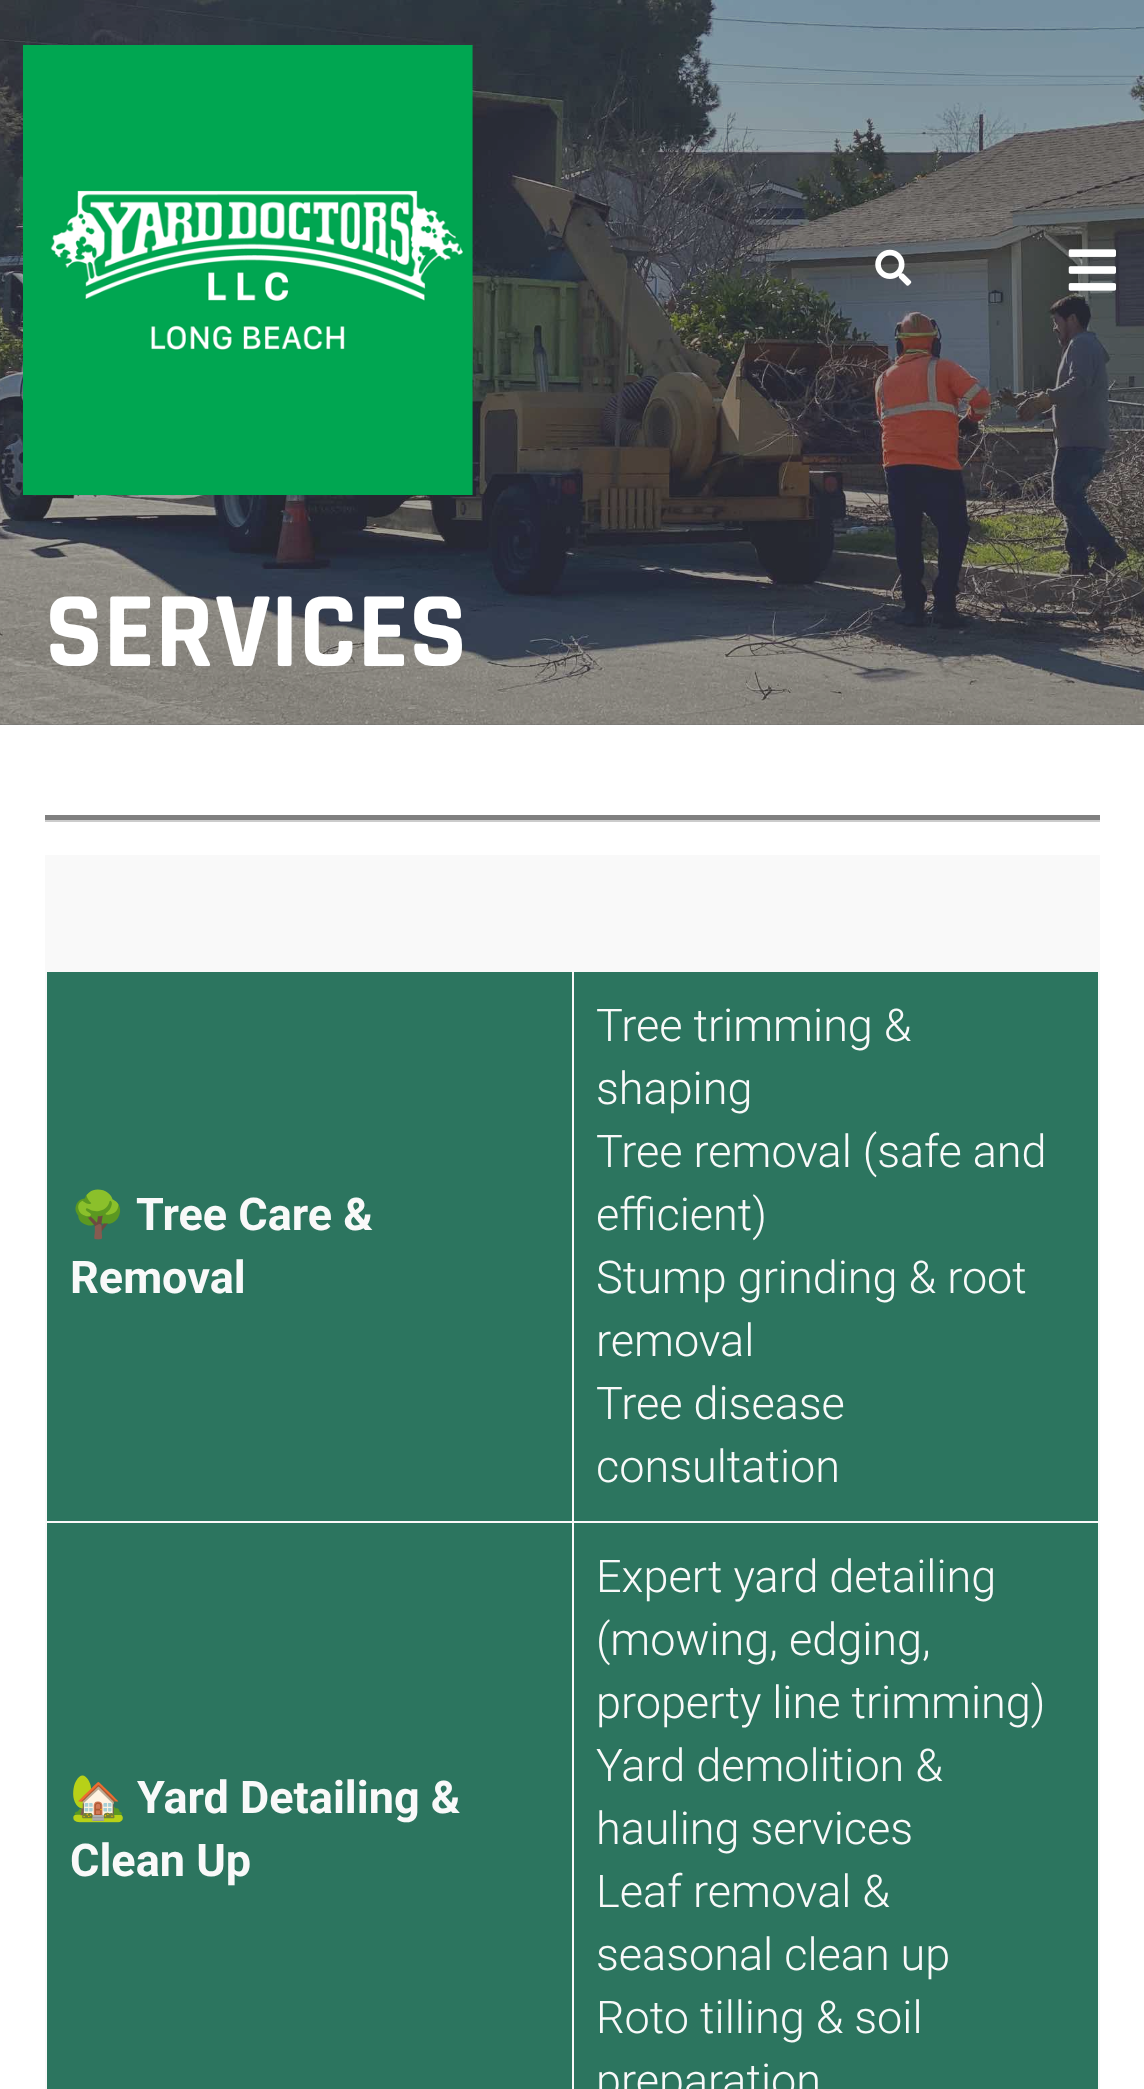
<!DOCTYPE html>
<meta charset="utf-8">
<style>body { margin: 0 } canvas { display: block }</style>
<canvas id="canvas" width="1144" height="2089"></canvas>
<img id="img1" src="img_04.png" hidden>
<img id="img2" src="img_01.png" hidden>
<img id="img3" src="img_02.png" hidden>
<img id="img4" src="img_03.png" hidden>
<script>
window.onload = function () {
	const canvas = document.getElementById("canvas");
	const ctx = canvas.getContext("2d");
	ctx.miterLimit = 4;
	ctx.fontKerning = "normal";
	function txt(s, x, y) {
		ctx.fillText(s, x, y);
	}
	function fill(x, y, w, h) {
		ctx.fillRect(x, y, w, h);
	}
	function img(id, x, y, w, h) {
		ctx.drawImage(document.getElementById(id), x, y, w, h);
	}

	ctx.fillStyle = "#FFFFFF";
	fill(0, 0, 1144, 2089);
	ctx.fillStyle = "#757575";
	fill(0, 724, 1144, 1);
	img("img1", 0, 0, 1144, 725);
	img("img2", 23, 45, 450, 450);
	img("img3", 875, 249, 37, 37);
	img("img4", 1068, 249, 48, 42);
	ctx.fillStyle = "#CCCCCC";
	fill(45, 820, 1055, 2);
	ctx.fillStyle = "#808080";
	fill(45, 815, 1055, 5);
	ctx.fillStyle = "#2C755F";
	fill(47, 972, 1051, 1117);
	ctx.fillStyle = "#F9F9F9";
	fill(45, 855, 1055, 2);
	fill(572, 1521, 528, 2);
	fill(572, 1521, 2, 568);
	fill(45, 1521, 529, 2);
	fill(45, 968, 2, 1121);
	fill(45, 855, 2, 115);
	fill(1098, 968, 2, 1121);
	fill(1098, 855, 2, 115);
	fill(572, 968, 2, 555);
	fill(45, 965, 1055, 7);
	fill(47, 857, 1051, 108);
	ctx.font = "bold 108px Rajdhani";
	ctx.fillStyle = "#FFFFFF";
	txt("SERVICES", 45, 666);
	ctx.font = "bold 45px Noto Color Emoji";
	ctx.fillStyle = "#F9F9F9";
	txt("🌳", 70, 1230);
	ctx.font = "bold 45px Roboto";
	txt("Tree Care &", 136, 1230);
	txt("Removal", 70, 1293);
	ctx.font = "300 45px Roboto";
	txt("Tree trimming &", 596, 1041);
	txt("shaping", 596, 1104);
	txt("Tree removal (safe and", 596, 1167);
	txt("efficient)", 596, 1230);
	txt("Stump grinding & root", 596, 1293);
	txt("removal", 596, 1356);
	txt("Tree disease", 596, 1419);
	txt("consultation", 596, 1482);
	ctx.font = "bold 45px Noto Color Emoji";
	txt("🏡", 70, 1813);
	ctx.font = "bold 45px Roboto";
	txt("Yard Detailing &", 137, 1813);
	txt("Clean Up", 70, 1876);
	ctx.font = "300 45px Roboto";
	txt("Expert yard detailing", 596, 1592);
	txt("(mowing, edging,", 596, 1655);
	txt("property line trimming)", 596, 1718);
	txt("Yard demolition &", 596, 1781);
	txt("hauling services", 596, 1844);
	txt("Leaf removal &", 596, 1907);
	txt("seasonal clean up", 596, 1970);
	txt("Roto tilling & soil", 596, 2033);
	txt("preparation", 596, 2096);
};
</script>
